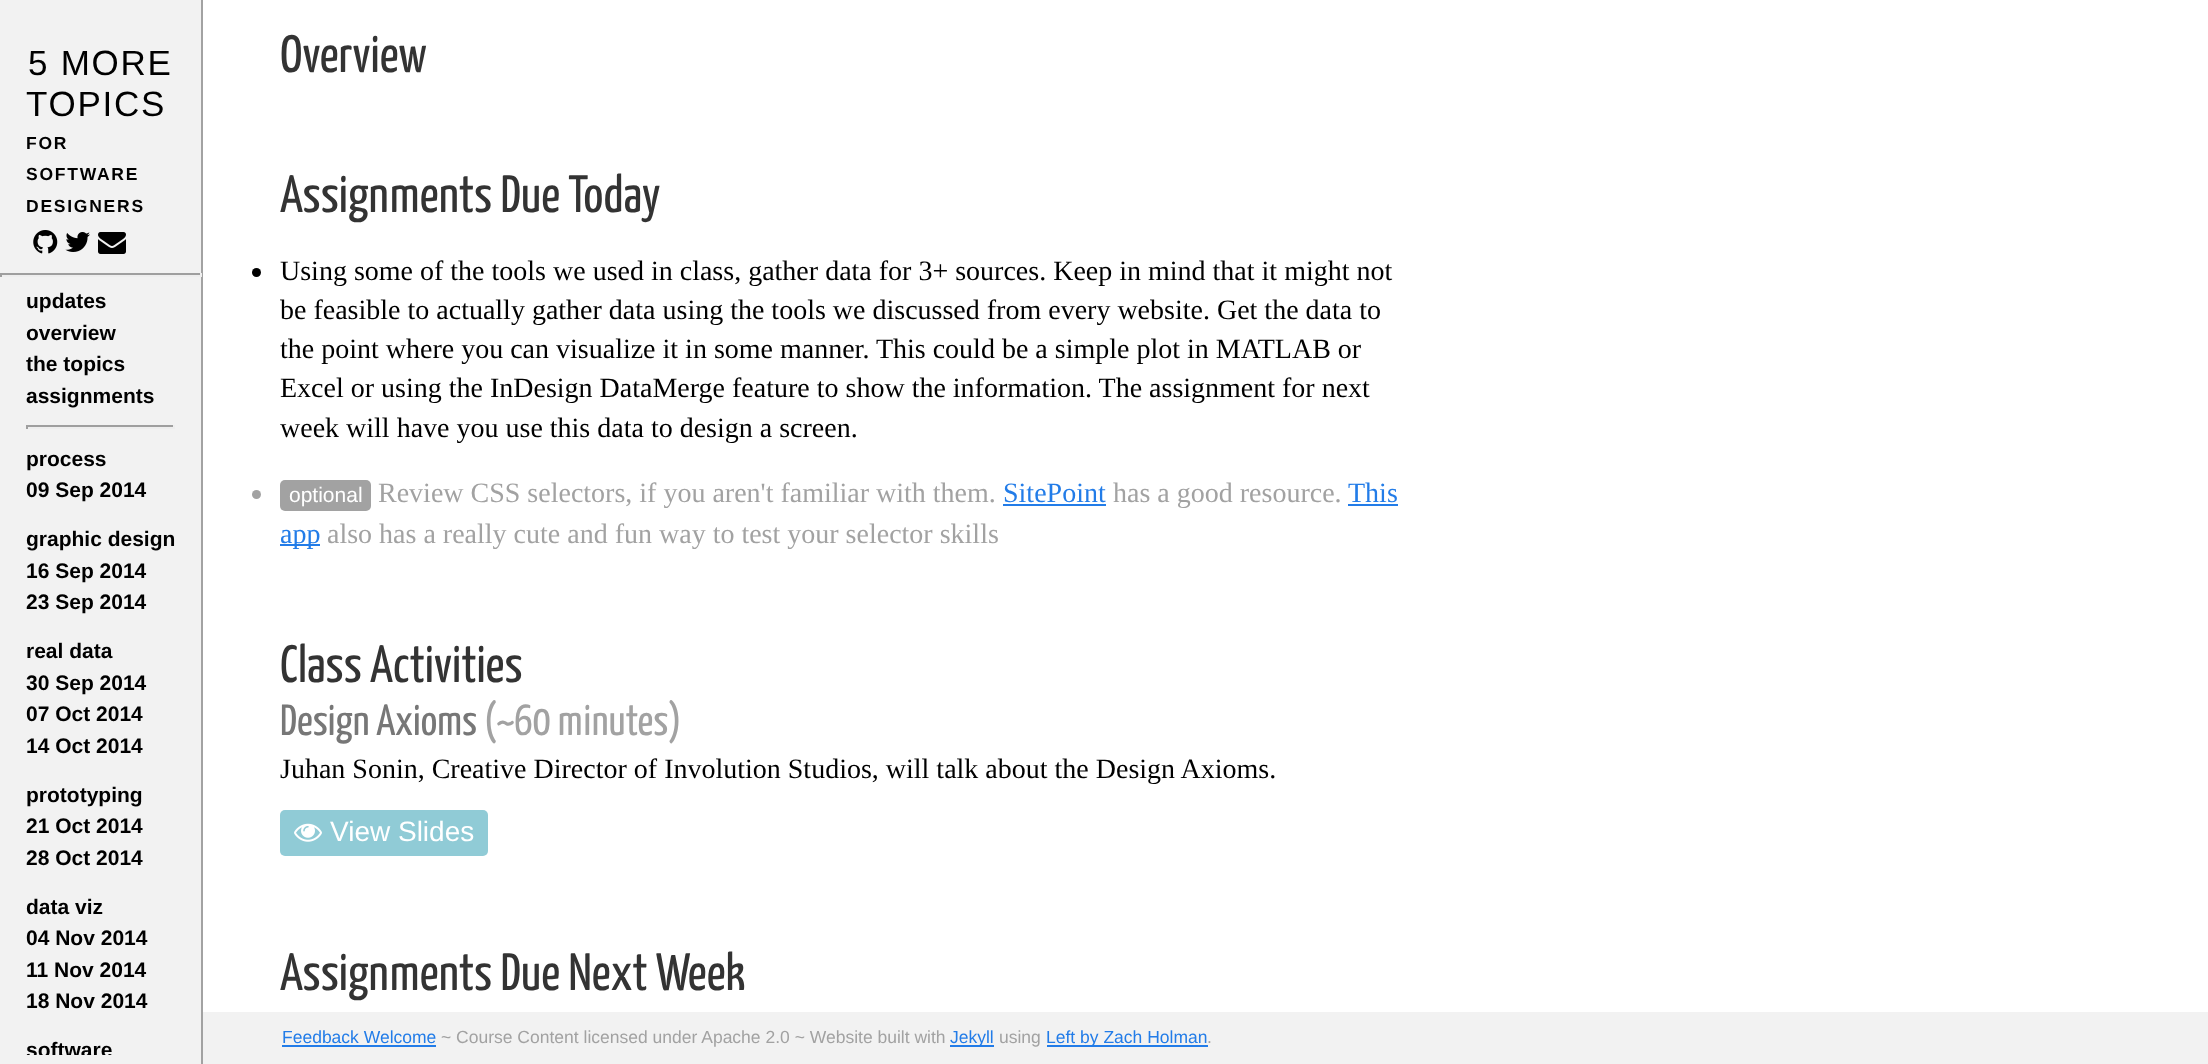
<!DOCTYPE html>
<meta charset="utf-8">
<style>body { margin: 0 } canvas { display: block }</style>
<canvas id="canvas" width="2208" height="1064"></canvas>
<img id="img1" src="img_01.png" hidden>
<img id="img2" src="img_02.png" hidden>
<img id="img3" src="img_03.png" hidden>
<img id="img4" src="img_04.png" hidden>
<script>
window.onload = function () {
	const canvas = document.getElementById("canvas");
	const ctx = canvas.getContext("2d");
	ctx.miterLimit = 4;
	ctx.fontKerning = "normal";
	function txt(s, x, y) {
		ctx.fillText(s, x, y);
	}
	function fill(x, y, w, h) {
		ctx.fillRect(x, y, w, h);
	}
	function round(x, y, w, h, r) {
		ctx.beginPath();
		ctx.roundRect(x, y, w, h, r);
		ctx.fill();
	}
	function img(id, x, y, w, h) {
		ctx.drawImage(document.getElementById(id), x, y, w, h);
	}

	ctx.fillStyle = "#FFFFFF";
	fill(0, 0, 2208, 1064);
	ctx.fillStyle = "#F2F2F2";
	fill(0, 0, 201, 1064);
	ctx.fillStyle = "#A2A2A2";
	fill(201, 0, 2, 1064);
	img("img1", 33, 230, 25, 24);
	img("img2", 65, 232, 25, 20);
	img("img3", 98, 232, 28, 22);
	ctx.fillStyle = "#9F9F9F";
	fill(0, 273, 201, 2);
	ctx.fillStyle = "#EEEEEE";
	fill(200, 273, 2, 4);
	fill(0, 275, 201, 2);
	ctx.fillStyle = "#9F9F9F";
	fill(0, 273, 2, 4);
	fill(26, 425, 149, 2);
	ctx.fillStyle = "#EEEEEE";
	fill(173, 425, 2, 4);
	fill(26, 427, 149, 2);
	ctx.fillStyle = "#9F9F9F";
	fill(26, 425, 2, 4);
	ctx.fillStyle = "#000000";
	ctx.beginPath();
	ctx.arc(256.5, 272.5, 4.5, 0, Math.PI * 2);
	ctx.fill();
	ctx.fillStyle = "#A2A2A2";
	ctx.beginPath();
	ctx.arc(256.5, 494.5, 4.5, 0, Math.PI * 2);
	ctx.fill();
	round(280, 480, 91, 31, 5);
	ctx.fillStyle = "#227CE8";
	fill(1003, 504, 103, 2);
	fill(1348, 504, 50, 2);
	fill(280, 544, 40, 2);
	ctx.fillStyle = "#90CBD6";
	round(280, 810, 208, 46, 5);
	img("img4", 294, 823, 28, 19);
	ctx.fillStyle = "#F2F2F2";
	fill(203, 1012, 2005, 52);
	ctx.fillStyle = "#227CE8";
	fill(282, 1045, 154, 2);
	fill(950, 1045, 44, 2);
	fill(1047, 1045, 161, 2);
	ctx.letterSpacing = "1.75px";
	ctx.font = "35px Liberation Sans";
	ctx.fillStyle = "#000000";
	txt("5 MORE", 28, 75);
	txt("TOPICS", 26, 116);
	ctx.font = "bold 17.5px Liberation Sans";
	txt("FOR", 26, 149);
	txt("SOFTWARE", 26, 180);
	txt("DESIGNERS", 26, 212);
	ctx.letterSpacing = "0px";
	ctx.font = "bold 21px Liberation Sans";
	txt("updates", 26, 308);
	txt("overview", 26, 340);
	txt("the topics", 26, 371);
	txt("assignments", 26, 403);
	txt("process", 26, 466);
	txt("09 Sep 2014", 26, 497);
	txt("graphic design", 26, 546);
	txt("16 Sep 2014", 26, 578);
	txt("23 Sep 2014", 26, 609);
	txt("real data", 26, 658);
	txt("30 Sep 2014", 26, 690);
	txt("07 Oct 2014", 26, 721);
	txt("14 Oct 2014", 26, 753);
	txt("prototyping", 26, 802);
	txt("21 Oct 2014", 26, 833);
	txt("28 Oct 2014", 26, 865);
	txt("data viz", 26, 914);
	txt("04 Nov 2014", 26, 945);
	txt("11 Nov 2014", 26, 977);
	txt("18 Nov 2014", 26, 1008);
	ctx.save();
	ctx.beginPath();
	ctx.rect(26, 285, 175, 770);
	ctx.clip();
	txt("software", 26, 1057);
	ctx.restore();
	ctx.font = "200 52.5px Yanone Kaffeesatz";
	ctx.fillStyle = "#333333";
	txt("Overview", 280, 72);
	txt("Assignments Due Today", 280, 212);
	ctx.font = "28px Liberation Serif";
	ctx.fillStyle = "#000000";
	txt("Using some of the tools we used in class, gather data for 3+ sources. Keep in mind that it might not", 280, 280);
	txt("be feasible to actually gather data using the tools we discussed from every website. Get the data to", 280, 319);
	txt("the point where you can visualize it in some manner. This could be a simple plot in MATLAB or", 280, 358);
	txt("Excel or using the InDesign DataMerge feature to show the information. The assignment for next", 280, 397);
	txt("week will have you use this data to design a screen.", 280, 437);
	ctx.font = "21px Liberation Sans";
	ctx.fillStyle = "#FFFFFF";
	txt("optional", 289, 502);
	ctx.font = "28px Liberation Serif";
	ctx.fillStyle = "#A2A2A2";
	txt("Review CSS selectors, if you aren't familiar with them.", 378, 502);
	ctx.fillStyle = "#227CE8";
	txt("SitePoint", 1003, 502);
	ctx.fillStyle = "#A2A2A2";
	txt("has a good resource.", 1113, 502);
	ctx.fillStyle = "#227CE8";
	txt("This", 1348, 502);
	txt("app", 280, 543);
	ctx.fillStyle = "#A2A2A2";
	txt("also has a really cute and fun way to test your selector skills", 327, 543);
	ctx.font = "200 52.5px Yanone Kaffeesatz";
	ctx.fillStyle = "#333333";
	txt("Class Activities", 280, 682);
	ctx.font = "200 43.75px Yanone Kaffeesatz";
	ctx.fillStyle = "#777777";
	txt("Design Axioms", 280, 735);
	ctx.fillStyle = "#A2A2A2";
	txt("(~60 minutes)", 484, 735);
	ctx.font = "28px Liberation Serif";
	ctx.fillStyle = "#000000";
	txt("Juhan Sonin, Creative Director of Involution Studios, will talk about the Design Axioms.", 280, 778);
	ctx.font = "28px Liberation Sans";
	ctx.fillStyle = "#FFFFFF";
	txt("View Slides", 330, 841);
	ctx.font = "200 52.5px Yanone Kaffeesatz";
	ctx.fillStyle = "#333333";
	txt("Assignments Due Next Week", 280, 990);
	ctx.font = "17.5px Liberation Sans";
	ctx.fillStyle = "#227CE8";
	txt("Feedback Welcome", 282, 1043);
	ctx.fillStyle = "#A2A2A2";
	txt("~ Course Content licensed under Apache 2.0 ~ Website built with", 441, 1043);
	ctx.fillStyle = "#227CE8";
	txt("Jekyll", 950, 1043);
	ctx.fillStyle = "#A2A2A2";
	txt("using", 999, 1043);
	ctx.fillStyle = "#227CE8";
	txt("Left by Zach Holman", 1046, 1043);
	ctx.fillStyle = "#A2A2A2";
	txt(".", 1207, 1043);
};
</script>
